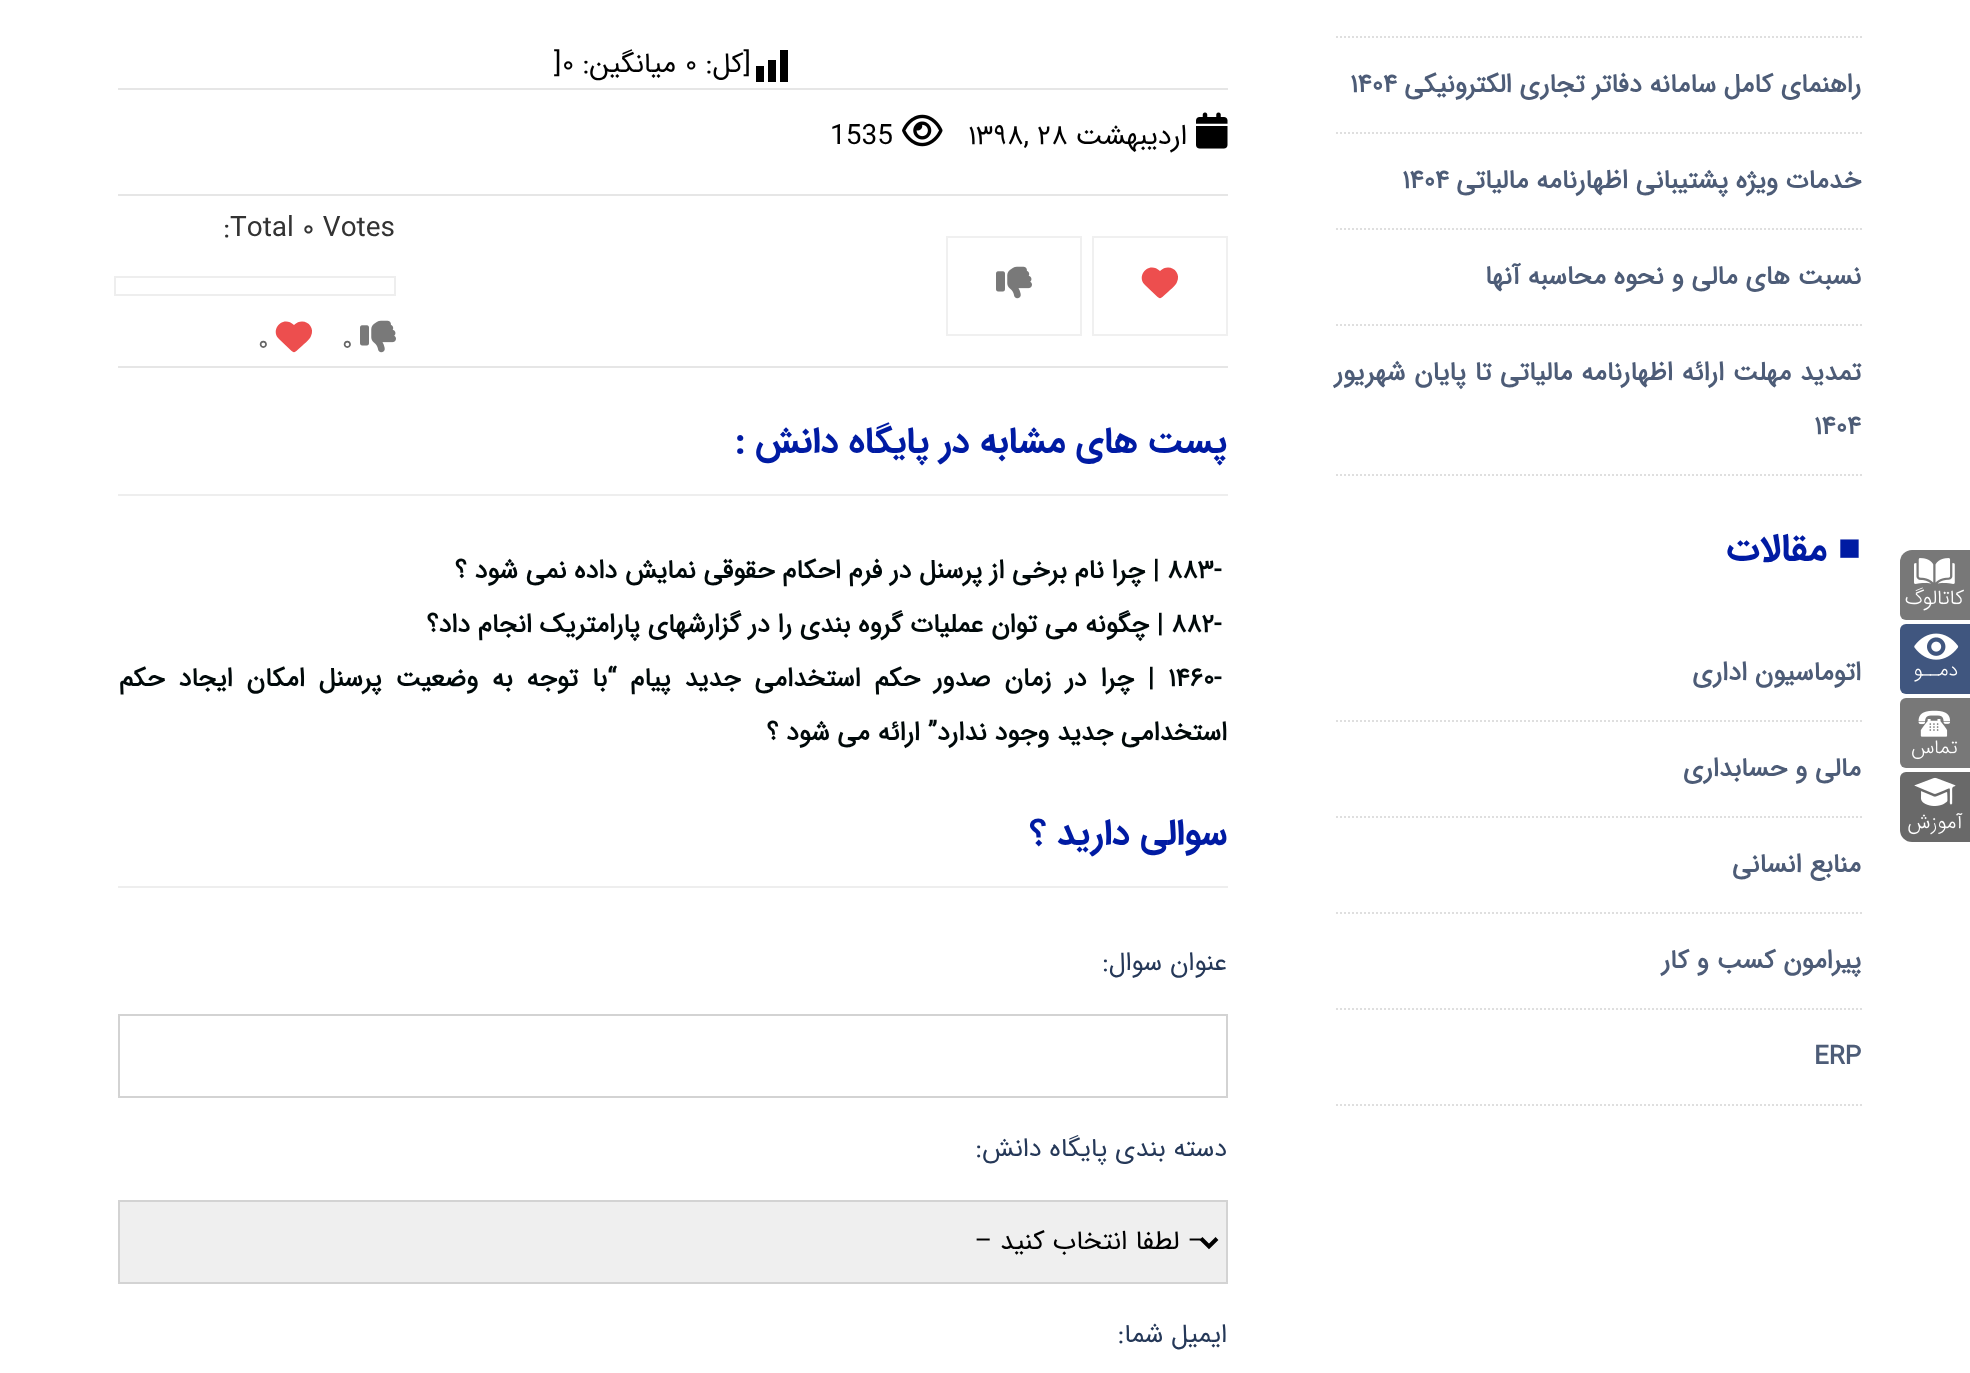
<!DOCTYPE html>
<meta charset="utf-8">
<style>body { margin: 0 } canvas { display: block }</style>
<canvas id="canvas" width="1970" height="1373"></canvas>
<img id="img1" src="img_01.png" hidden>
<img id="img2" src="img_02.png" hidden>
<img id="img3" src="img_03.png" hidden>
<img id="img4" src="img_04.png" hidden>
<img id="img5" src="img_05.png" hidden>
<img id="img6" src="img_06.png" hidden>
<img id="img7" src="img_07.png" hidden>
<img id="img8" src="img_08.png" hidden>
<script>
window.onload = function () {
	const canvas = document.getElementById("canvas");
	const ctx = canvas.getContext("2d");
	ctx.miterLimit = 4;
	ctx.fontKerning = "normal";
	function txt(s, x, y) {
		ctx.fillText(s, x, y);
	}
	function fill(x, y, w, h) {
		ctx.fillRect(x, y, w, h);
	}
	function img(id, x, y, w, h) {
		ctx.drawImage(document.getElementById(id), x, y, w, h);
	}

	ctx.fillStyle = "#FFFFFF";
	fill(0, 0, 1970, 1373);
	ctx.fillStyle = "#787878";
	ctx.beginPath();
	ctx.roundRect(1900, 550, 70, 70, [12, 0, 0, 6]);
	ctx.fill();
	img("img1", 1905, 558, 59, 53);
	ctx.fillStyle = "#40567F";
	ctx.beginPath();
	ctx.roundRect(1900, 624, 70, 70, [6, 0, 0, 6]);
	ctx.fill();
	img("img2", 1914, 633, 45, 49);
	ctx.fillStyle = "#787878";
	ctx.beginPath();
	ctx.roundRect(1900, 698, 70, 70, [6, 0, 0, 6]);
	ctx.fill();
	img("img3", 1912, 710, 46, 50);
	ctx.fillStyle = "#696969";
	ctx.beginPath();
	ctx.roundRect(1900, 772, 70, 70, [6, 0, 0, 12]);
	ctx.fill();
	img("img4", 1908, 777, 55, 58);
	ctx.beginPath();
	ctx.moveTo(1336, 37);
	ctx.lineTo(1862, 37);
	ctx.strokeStyle = "#DFDFDF";
	ctx.lineWidth = 2;
	ctx.setLineDash([2, 2]);
	ctx.stroke();
	ctx.beginPath();
	ctx.moveTo(1336, 133);
	ctx.lineTo(1862, 133);
	ctx.stroke();
	ctx.beginPath();
	ctx.moveTo(1336, 229);
	ctx.lineTo(1862, 229);
	ctx.stroke();
	ctx.beginPath();
	ctx.moveTo(1336, 325);
	ctx.lineTo(1862, 325);
	ctx.stroke();
	ctx.beginPath();
	ctx.moveTo(1336, 475);
	ctx.lineTo(1862, 475);
	ctx.stroke();
	ctx.beginPath();
	ctx.moveTo(1336, 721);
	ctx.lineTo(1862, 721);
	ctx.stroke();
	ctx.beginPath();
	ctx.moveTo(1336, 817);
	ctx.lineTo(1862, 817);
	ctx.stroke();
	ctx.beginPath();
	ctx.moveTo(1336, 913);
	ctx.lineTo(1862, 913);
	ctx.stroke();
	ctx.beginPath();
	ctx.moveTo(1336, 1009);
	ctx.lineTo(1862, 1009);
	ctx.stroke();
	ctx.beginPath();
	ctx.moveTo(1336, 1105);
	ctx.lineTo(1862, 1105);
	ctx.stroke();
	img("img5", 756, 50, 32, 32);
	ctx.fillStyle = "#E6E6E6";
	fill(118, 88, 1110, 2);
	img("img6", 1196, 112, 32, 37);
	img("img7", 902, 114, 41, 33);
	fill(118, 194, 1110, 2);
	fill(118, 366, 1110, 2);
	ctx.strokeStyle = "#F0F0F0";
	ctx.setLineDash([]);
	ctx.strokeRect(1093, 237, 134, 98);
	ctx.fillStyle = "#ED4E4E";
	ctx.beginPath();
	ctx.moveTo(1145.5, 285.5);
	ctx.lineTo(1158, 297.5);
	ctx.lineTo(1145.5, 285.5);
	ctx.lineTo(1156, 295.5);
	ctx.bezierCurveTo(1160, 299, 1160, 299, 1164, 295.5);
	ctx.lineTo(1168.5, 291.5);
	ctx.bezierCurveTo(1171, 289, 1175.5, 286, 1177, 282);
	ctx.bezierCurveTo(1182, 271.5, 1169, 262, 1160, 271);
	ctx.bezierCurveTo(1149, 260.5, 1135, 276, 1145.5, 285.5);
	ctx.closePath();
	ctx.fill();
	ctx.strokeRect(947, 237, 134, 98);
	img("img8", 996, 266, 36, 33);
	ctx.strokeStyle = "#EEEEEE";
	ctx.strokeRect(115, 277, 280, 18);
	img("img8", 360, 320, 36, 33);
	ctx.beginPath();
	ctx.moveTo(279.5, 339.5);
	ctx.lineTo(292, 351.5);
	ctx.lineTo(279.5, 339.5);
	ctx.lineTo(290, 349.5);
	ctx.bezierCurveTo(294, 353, 294, 353, 298, 349.5);
	ctx.lineTo(302.5, 345.5);
	ctx.bezierCurveTo(305, 343, 309.5, 340, 311, 336);
	ctx.bezierCurveTo(316, 325.5, 303, 316, 294, 325);
	ctx.bezierCurveTo(283, 314.5, 269, 330, 279.5, 339.5);
	ctx.closePath();
	ctx.fill();
	ctx.fillStyle = "#EEEEEE";
	fill(118, 494, 1110, 2);
	fill(118, 886, 1110, 2);
	ctx.strokeStyle = "#D3D3D3";
	ctx.strokeRect(119, 1015, 1108, 82);
	ctx.fillStyle = "#EFEFEF";
	ctx.beginPath();
	ctx.rect(119, 1201, 1108, 82);
	ctx.fill();
	ctx.stroke();
	ctx.beginPath();
	ctx.moveTo(1201, 1238.5);
	ctx.lineTo(1209, 1246.5);
	ctx.lineTo(1217, 1238.5);
	ctx.strokeStyle = "#000000";
	ctx.lineWidth = 4;
	ctx.stroke();
	ctx.direction = "rtl";
	ctx.font = "bold 26px 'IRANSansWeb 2'";
	ctx.fillStyle = "#4D5C77";
	txt("راهنمای کامل سامانه دفاتر تجاری الکترونیکی", 1861, 92);
	ctx.direction = "ltr";
	txt("۱۴۰۴", 1350, 92);
	ctx.direction = "rtl";
	txt("خدمات ویژه پشتیبانی اظهارنامه مالیاتی", 1861, 188);
	ctx.direction = "ltr";
	txt("۱۴۰۴", 1402, 188);
	ctx.direction = "rtl";
	txt("نسبت های مالی و نحوه محاسبه آنها", 1861, 284);
	ctx.wordSpacing = "1px";
	txt("تمدید مهلت ارائه اظهارنامه مالیاتی تا پایان شهریور", 1861, 380);
	ctx.wordSpacing = "0px";
	ctx.direction = "ltr";
	txt("۱۴۰۴", 1814, 434);
	ctx.direction = "rtl";
	ctx.font = "bold 38px Liberation Sans";
	ctx.fillStyle = "#001BA3";
	txt("■", 1861, 560);
	ctx.font = "bold 38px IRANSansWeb";
	txt("مقالات", 1827, 560);
	ctx.font = "bold 26px 'IRANSansWeb 2'";
	ctx.fillStyle = "#4D5C77";
	txt("اتوماسیون اداری", 1861, 680);
	txt("مالی و حسابداری", 1861, 776);
	txt("منابع انسانی", 1861, 872);
	txt("پیرامون کسب و کار", 1861, 968);
	ctx.direction = "ltr";
	txt("ERP", 1814, 1064);
	ctx.direction = "rtl";
	ctx.font = "28px IRANSansWeb";
	ctx.fillStyle = "#000000";
	txt("[کل:", 751, 72);
	ctx.direction = "ltr";
	txt("۰", 685, 72);
	ctx.direction = "rtl";
	txt("میانگین:", 676, 72);
	ctx.direction = "ltr";
	txt("۰", 562, 72);
	txt("]", 554, 72);
	ctx.direction = "rtl";
	txt("اردیبهشت", 1187, 144);
	ctx.direction = "ltr";
	txt("۱۳۹۸, ۲۸", 968, 144);
	txt("1535", 830, 144);
	ctx.fillStyle = "#333333";
	txt("Total ۰ Votes", 230, 236);
	txt(":", 223, 236);
	ctx.font = "24px IRANSansWeb";
	ctx.fillStyle = "#666666";
	txt("۰", 342, 350);
	txt("۰", 258, 350);
	ctx.direction = "rtl";
	ctx.font = "bold 36px IRANSansWeb";
	ctx.fillStyle = "#001BA3";
	txt("پست های مشابه در پایگاه دانش :", 1227, 452);
	ctx.direction = "ltr";
	ctx.font = "bold 26px 'IRANSansWeb 2'";
	ctx.fillStyle = "#00090A";
	txt("-", 1214, 578);
	txt("۸۸۳", 1167, 578);
	ctx.direction = "rtl";
	txt("| چرا نام برخی از پرسنل در فرم احکام حقوقی نمایش داده نمی شود ؟", 1159, 578);
	ctx.direction = "ltr";
	txt("-", 1214, 632);
	txt("۸۸۲", 1171, 632);
	ctx.direction = "rtl";
	txt("| چگونه می توان عملیات گروه بندی را در گزارشهای پارامتریک انجام داد؟", 1163, 632);
	ctx.direction = "ltr";
	txt("-", 1214, 686);
	txt("۱۴۶۰", 1168, 686);
	ctx.wordSpacing = "6.1px";
	ctx.direction = "rtl";
	txt("| چرا در زمان صدور حکم استخدامی جدید پیام “با توجه به وضعیت پرسنل امکان ایجاد حکم", 1154, 686);
	ctx.wordSpacing = "0px";
	txt("استخدامی جدید وجود ندارد” ارائه می شود ؟", 1227, 740);
	ctx.font = "bold 36px IRANSansWeb";
	ctx.fillStyle = "#001BA3";
	txt("سوالی دارید ؟", 1227, 844);
	ctx.font = "26px IRANSansWeb";
	ctx.fillStyle = "#253858";
	txt("عنوان سوال:", 1227, 970);
	txt("دسته بندی پایگاه دانش:", 1227, 1156);
	ctx.font = "26.75px IRANSansWeb";
	ctx.fillStyle = "#000000";
	txt("– لطفا انتخاب کنید –", 1205, 1249);
	ctx.font = "26px IRANSansWeb";
	ctx.fillStyle = "#253858";
	txt("ایمیل شما:", 1227, 1342);
};
</script>
